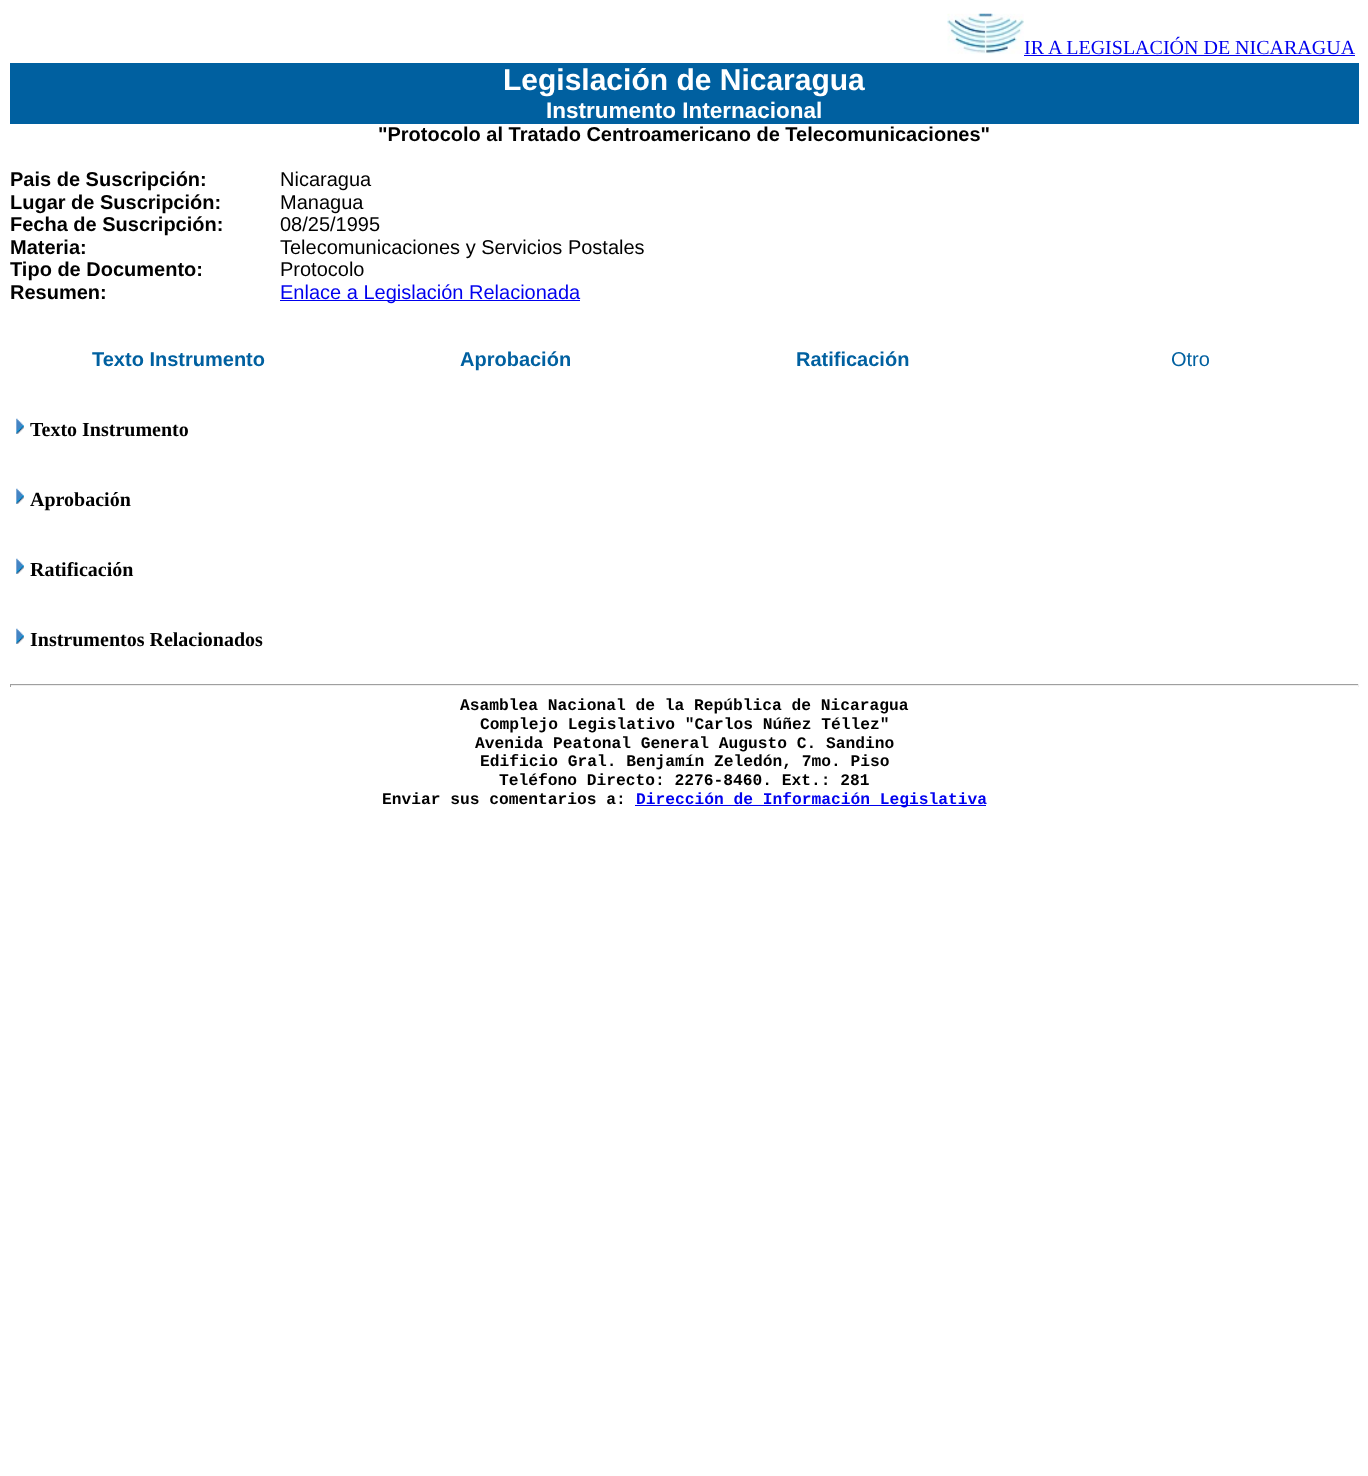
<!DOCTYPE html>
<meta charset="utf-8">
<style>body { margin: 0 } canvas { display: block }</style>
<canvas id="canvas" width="1368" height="1476"></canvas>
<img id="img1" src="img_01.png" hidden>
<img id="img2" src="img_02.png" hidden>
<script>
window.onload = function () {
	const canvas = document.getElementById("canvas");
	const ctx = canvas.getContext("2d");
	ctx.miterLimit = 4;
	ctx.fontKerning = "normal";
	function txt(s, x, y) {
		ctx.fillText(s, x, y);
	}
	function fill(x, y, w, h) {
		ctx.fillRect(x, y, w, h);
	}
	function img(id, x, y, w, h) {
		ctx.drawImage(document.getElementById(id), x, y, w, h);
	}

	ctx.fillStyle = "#FFFFFF";
	fill(0, 0, 1368, 1476);
	img("img1", 947, 13, 77, 41);
	ctx.fillStyle = "#0000EE";
	fill(1024, 55, 331, 1);
	ctx.fillStyle = "#0060A0";
	fill(10, 63, 1349, 61);
	ctx.fillStyle = "#0000EE";
	fill(280, 300, 300, 1);
	img("img2", 16, 418, 8, 16);
	img("img2", 16, 488, 8, 16);
	img("img2", 16, 558, 8, 16);
	img("img2", 16, 628, 8, 16);
	ctx.fillStyle = "#9F9F9F";
	fill(10, 684, 1349, 1);
	ctx.fillStyle = "#EEEEEE";
	fill(1358, 684, 1, 3);
	fill(10, 685, 1349, 1);
	ctx.fillStyle = "#9F9F9F";
	fill(10, 684, 1, 3);
	ctx.fillStyle = "#0000EE";
	fill(635, 805, 351, 1);
	ctx.font = "20px Liberation Serif";
	txt("IR A LEGISLACIÓN DE NICARAGUA", 1024, 54);
	ctx.font = "bold 30px Liberation Sans";
	ctx.fillStyle = "#FFFFFF";
	txt("Legislación de Nicaragua", 503, 90);
	ctx.font = "bold 22.5px Liberation Sans";
	txt("Instrumento Internacional", 546, 118);
	ctx.font = "bold 20px Liberation Sans";
	ctx.fillStyle = "#000000";
	txt("\"Protocolo al Tratado Centroamericano de Telecomunicaciones\"", 378, 141);
	txt("Pais de Suscripción:", 10, 186);
	ctx.font = "20px Liberation Sans";
	txt("Nicaragua", 280, 186);
	ctx.font = "bold 20px Liberation Sans";
	txt("Lugar de Suscripción:", 10, 209);
	ctx.font = "20px Liberation Sans";
	txt("Managua", 280, 209);
	ctx.font = "bold 20px Liberation Sans";
	txt("Fecha de Suscripción:", 10, 231);
	ctx.font = "20px Liberation Sans";
	txt("08/25/1995", 280, 231);
	ctx.font = "bold 20px Liberation Sans";
	txt("Materia:", 10, 254);
	ctx.font = "20px Liberation Sans";
	txt("Telecomunicaciones y Servicios Postales", 280, 254);
	ctx.font = "bold 20px Liberation Sans";
	txt("Tipo de Documento:", 10, 276);
	ctx.font = "20px Liberation Sans";
	txt("Protocolo", 280, 276);
	ctx.font = "bold 20px Liberation Sans";
	txt("Resumen:", 10, 299);
	ctx.font = "20px Liberation Sans";
	ctx.fillStyle = "#0000EE";
	txt("Enlace a Legislación Relacionada", 280, 299);
	ctx.font = "bold 20px Liberation Sans";
	ctx.fillStyle = "#0060A0";
	txt("Texto Instrumento", 92, 366);
	txt("Aprobación", 460, 366);
	txt("Ratificación", 796, 366);
	ctx.font = "20px Liberation Sans";
	txt("Otro", 1171, 366);
	ctx.font = "bold 20px Liberation Serif";
	ctx.fillStyle = "#000000";
	txt("Texto Instrumento", 30, 436);
	txt("Aprobación", 30, 506);
	txt("Ratificación", 30, 576);
	txt("Instrumentos Relacionados", 30, 646);
	ctx.font = "bold 16.25px Liberation Mono";
	txt("Asamblea Nacional de la República de Nicaragua", 460, 710);
	txt("Complejo Legislativo \"Carlos Núñez Téllez\"", 480, 729);
	txt("Avenida Peatonal General Augusto C. Sandino", 475, 748);
	txt("Edificio Gral. Benjamín Zeledón, 7mo. Piso", 480, 766);
	txt("Teléfono Directo: 2276-8460. Ext.: 281", 499, 785);
	txt("Enviar sus comentarios a:", 382, 804);
	ctx.fillStyle = "#0000EE";
	txt("Dirección de Información Legislativa", 636, 804);
};
</script>
